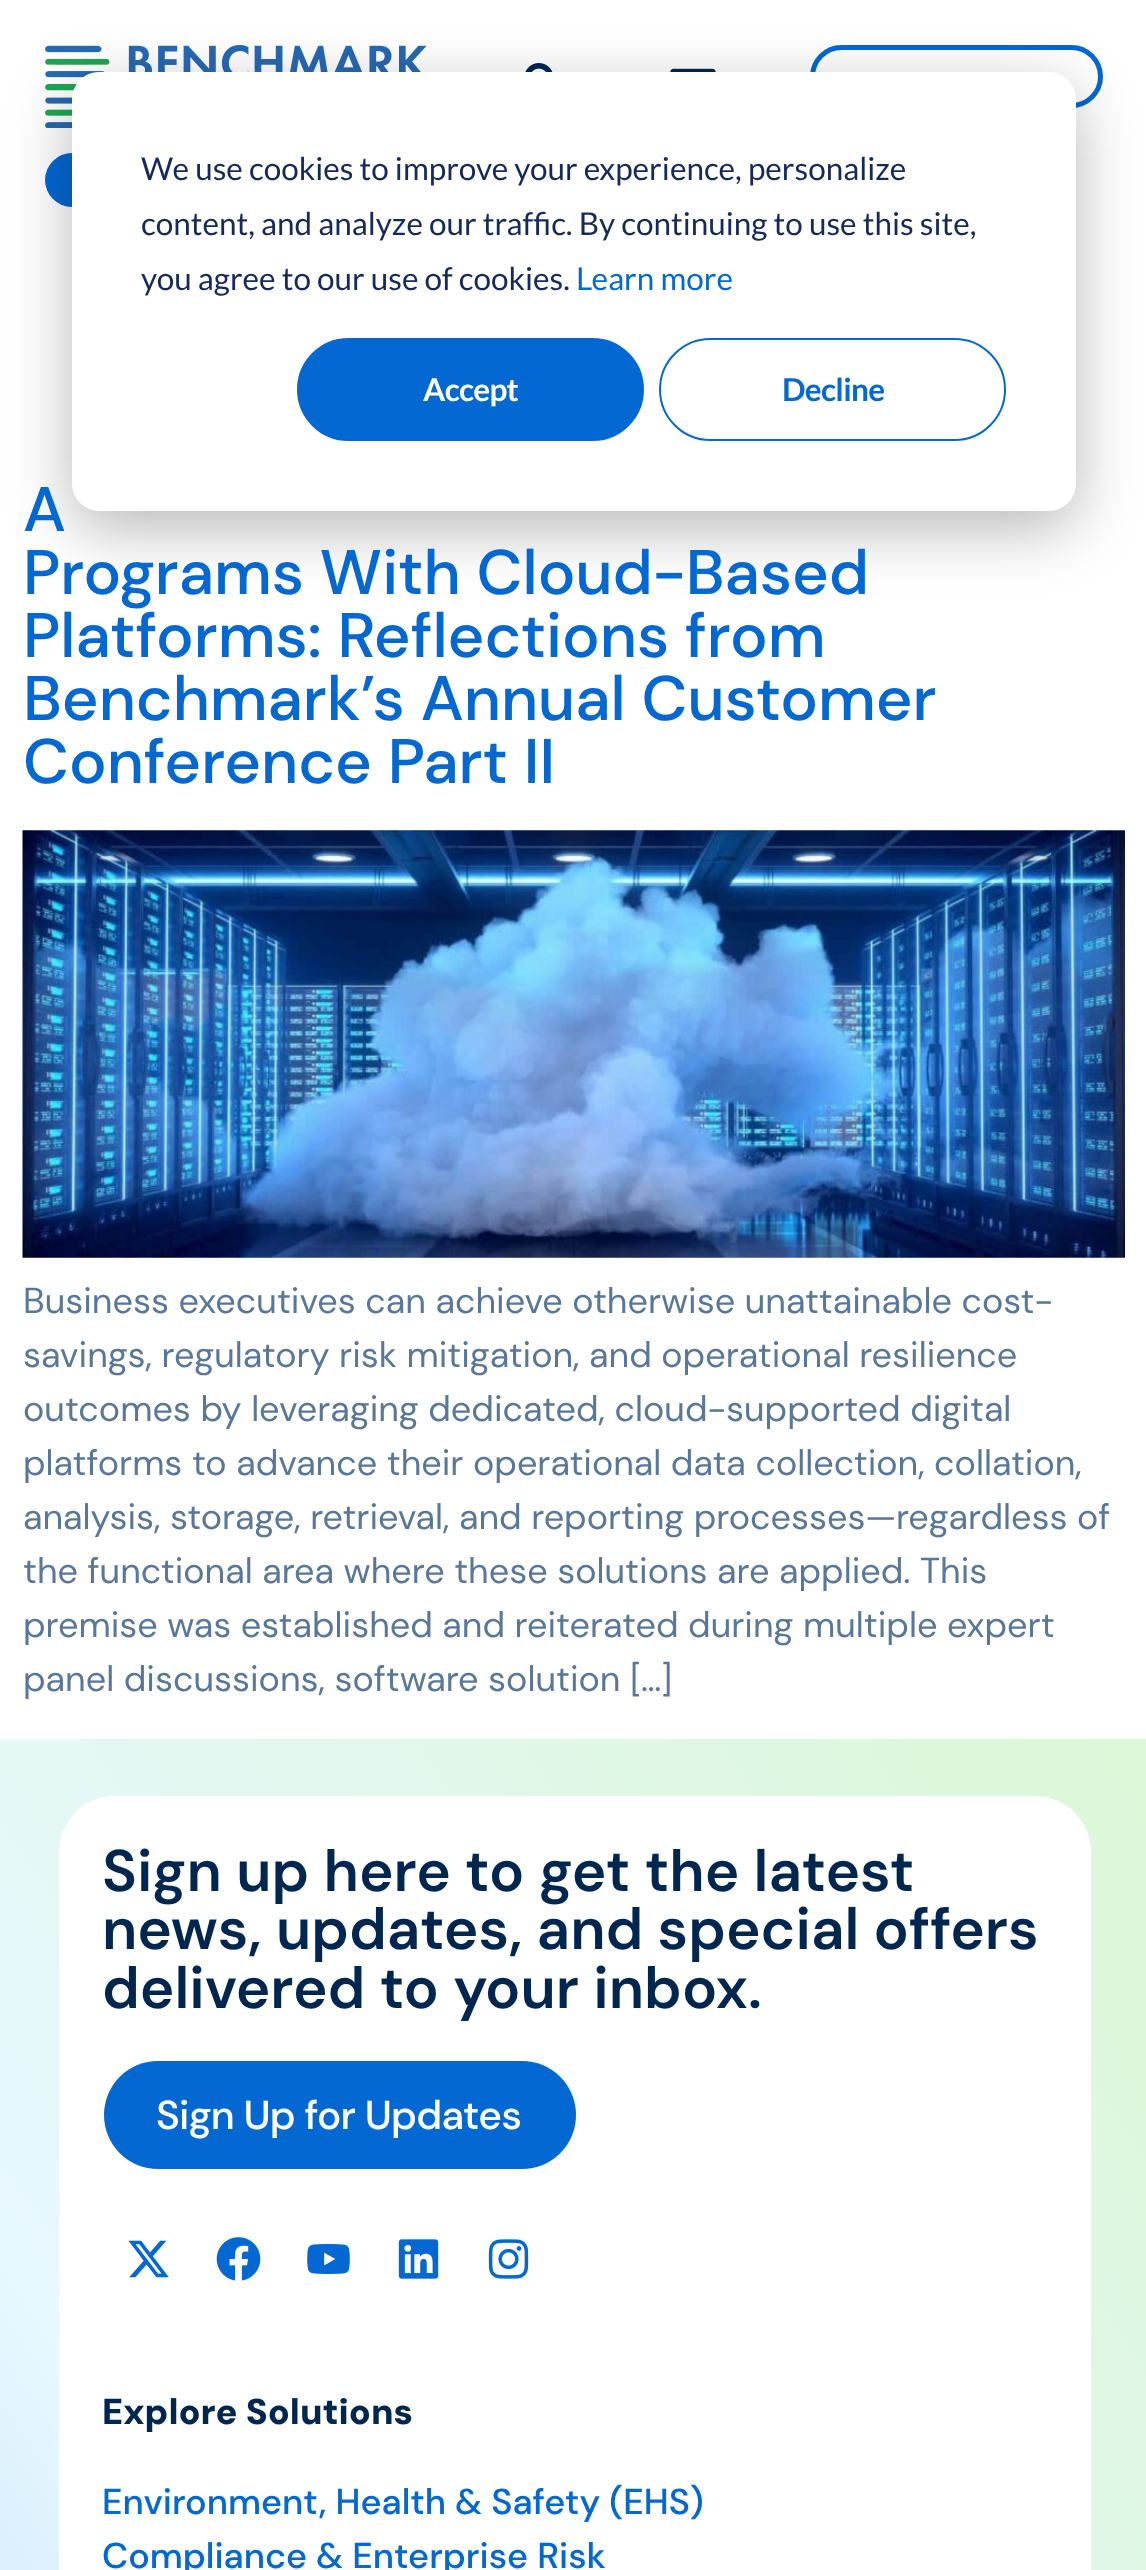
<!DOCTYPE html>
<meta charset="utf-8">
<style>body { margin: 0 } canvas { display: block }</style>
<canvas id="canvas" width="1146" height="2570"></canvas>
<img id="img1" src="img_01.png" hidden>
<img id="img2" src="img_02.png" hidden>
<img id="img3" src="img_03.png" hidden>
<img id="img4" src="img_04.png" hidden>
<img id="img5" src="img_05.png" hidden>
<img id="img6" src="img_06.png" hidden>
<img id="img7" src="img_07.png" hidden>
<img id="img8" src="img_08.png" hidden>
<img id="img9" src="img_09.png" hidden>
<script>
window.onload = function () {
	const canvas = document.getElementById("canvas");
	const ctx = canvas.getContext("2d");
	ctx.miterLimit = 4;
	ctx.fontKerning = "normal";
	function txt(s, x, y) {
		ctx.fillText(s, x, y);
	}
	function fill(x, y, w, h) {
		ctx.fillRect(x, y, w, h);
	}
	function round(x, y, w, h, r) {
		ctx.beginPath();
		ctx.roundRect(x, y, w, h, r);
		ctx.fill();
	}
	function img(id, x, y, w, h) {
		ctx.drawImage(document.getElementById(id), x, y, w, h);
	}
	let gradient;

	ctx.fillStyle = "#FFFFFF";
	fill(0, 0, 1146, 2570);
	img("img1", 45, 45, 382, 83);
	img("img2", 525, 63, 28, 9);
	img("img3", 670, 68, 46, 4);
	ctx.beginPath();
	ctx.roundRect(812.5, 47.5, 288, 58, 29);
	ctx.strokeStyle = "#0468D3";
	ctx.lineWidth = 5;
	ctx.stroke();
	ctx.fillStyle = "#0468D3";
	round(45, 153, 281, 54, 27);
	ctx.fillStyle = "rgba(0, 0, 0, 0.28)";
	ctx.filter = "blur(31.5px)";
	ctx.beginPath();
	ctx.roundRect(72, 90, 1004, 439, 27);
	ctx.fill();
	ctx.filter = "none";
	ctx.fillStyle = "#FFFFFF";
	round(72, 72, 1004, 439, 27);
	ctx.fillStyle = "#0468D3";
	ctx.beginPath();
	ctx.roundRect(298, 339, 345, 101, 50.5);
	ctx.fill();
	ctx.lineWidth = 2;
	ctx.stroke();
	ctx.beginPath();
	ctx.roundRect(660, 339, 345, 101, 50.5);
	ctx.stroke();
	img("img4", 22, 830, 1103, 428);
	gradient = ctx.createLinearGradient(-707, 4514, 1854, 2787);
	gradient.addColorStop(0.19, "#88C1EB");
	gradient.addColorStop(0.6, "#E8F8FF");
	gradient.addColorStop(1, "#DBF7D7");
	ctx.fillStyle = gradient;
	fill(0, 1739, 1146, 831);
	ctx.fillStyle = "#FFFFFF";
	round(59, 1796, 1032, 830, 56);
	ctx.fillStyle = "#0468D3";
	round(104, 2061, 472, 108, 54);
	img("img5", 128, 2240, 41, 38);
	img("img6", 216, 2237, 45, 44);
	img("img7", 307, 2244, 43, 30);
	img("img8", 398, 2239, 41, 40);
	img("img9", 488, 2239, 41, 40);
	ctx.font = "31.5px Lato";
	ctx.fillStyle = "#15295A";
	txt("We use cookies to improve your experience, personalize", 141, 180);
	txt("content, and analyze our traffic. By continuing to use this site,", 141, 235);
	txt("you agree to our use of cookies.", 141, 290);
	ctx.fillStyle = "#0468D3";
	txt("Learn more", 576, 290);
	ctx.letterSpacing = "-0.7px";
	ctx.font = "bold 31.5px Lato";
	ctx.fillStyle = "#FFFFFF";
	txt("Accept", 423, 401);
	ctx.fillStyle = "#0468D3";
	txt("Decline", 782, 401);
	ctx.letterSpacing = "0px";
	ctx.font = "500 63px DM Sans";
	txt("A", 23, 531);
	txt("Programs With Cloud-Based", 23, 594);
	txt("Platforms: Reflections from", 23, 657);
	txt("Benchmark’s Annual Customer", 23, 720);
	txt("Conference Part II", 23, 783);
	ctx.font = "36px DM Sans";
	ctx.fillStyle = "#597798";
	txt("Business executives can achieve otherwise unattainable cost-", 23, 1313);
	txt("savings, regulatory risk mitigation, and operational resilience", 23, 1367);
	txt("outcomes by leveraging dedicated, cloud-supported digital", 23, 1421);
	txt("platforms to advance their operational data collection, collation,", 23, 1475);
	txt("analysis, storage, retrieval, and reporting processes—regardless of", 23, 1529);
	txt("the functional area where these solutions are applied. This", 23, 1583);
	txt("premise was established and reiterated during multiple expert", 23, 1637);
	txt("panel discussions, software solution […]", 23, 1691);
	ctx.font = "600 58.5px DM Sans";
	ctx.fillStyle = "#012751";
	txt("Sign up here to get the latest", 102, 1891);
	txt("news, updates, and special offers", 102, 1949);
	txt("delivered to your inbox.", 102, 2008);
	ctx.letterSpacing = "-0.7px";
	ctx.font = "500 40.5px DM Sans";
	ctx.fillStyle = "#FFFFFF";
	txt("Sign Up for Updates", 156, 2129);
	ctx.letterSpacing = "0px";
	ctx.font = "900 36px DM Sans";
	ctx.fillStyle = "#012751";
	txt("Explore Solutions", 102, 2424);
	ctx.font = "500 36px DM Sans";
	ctx.fillStyle = "#0468D3";
	txt("Environment, Health & Safety (EHS)", 102, 2514);
	txt("Compliance & Enterprise Risk", 102, 2568);
};
</script>
